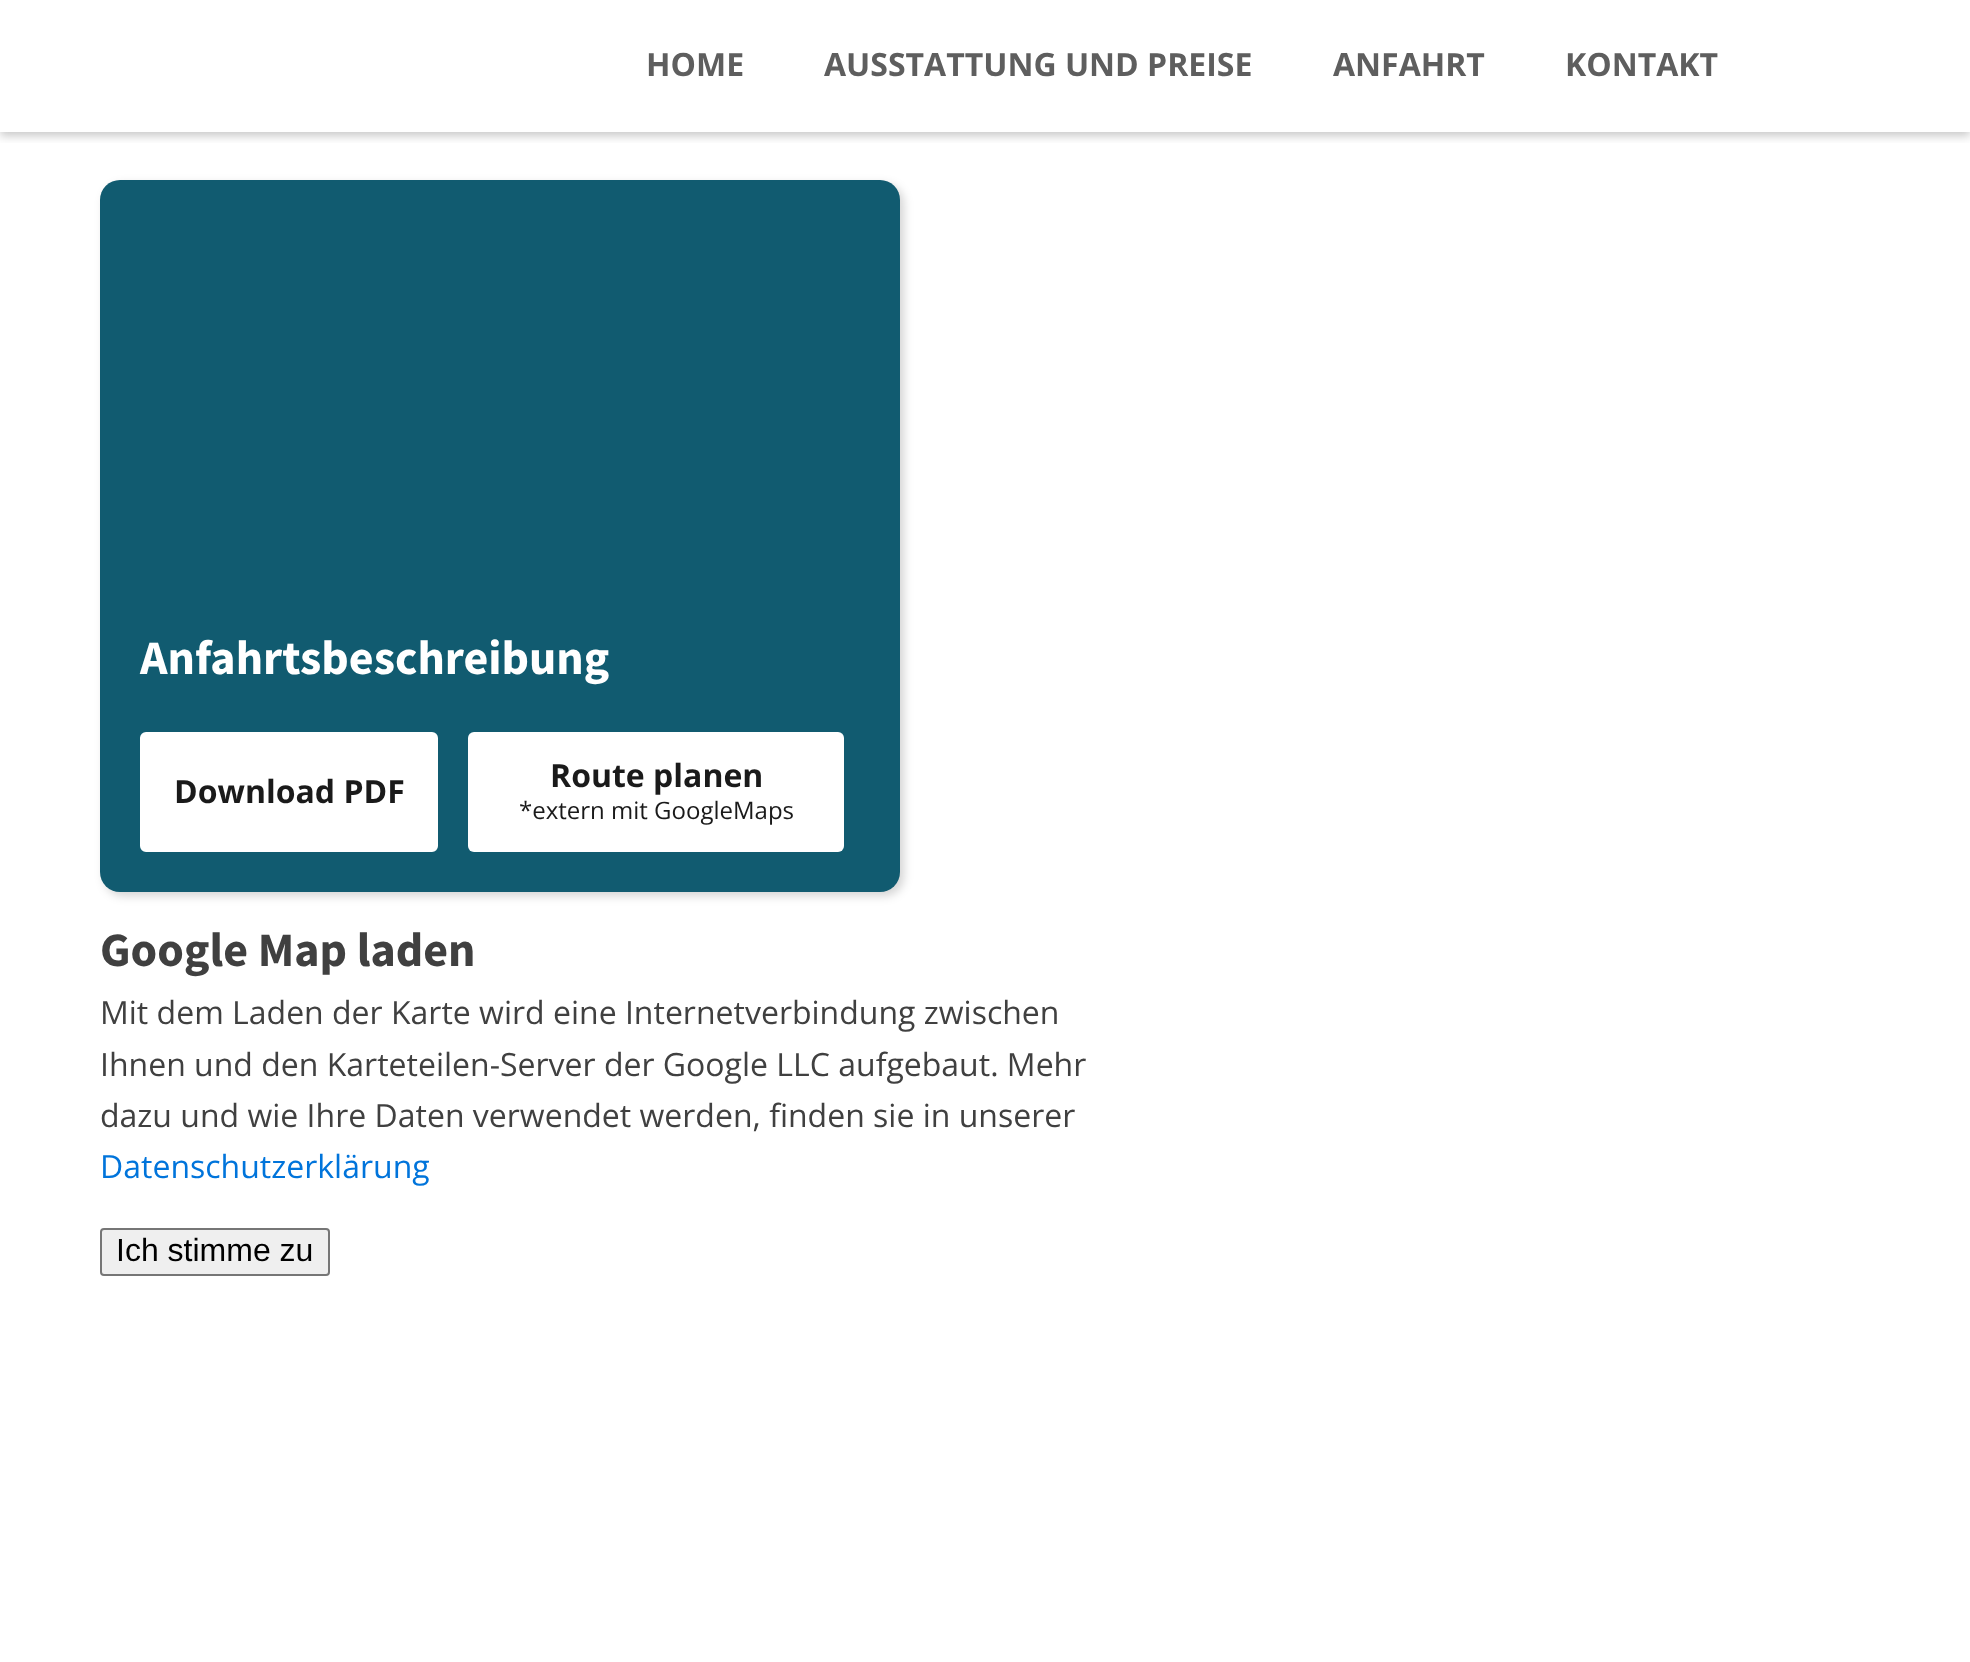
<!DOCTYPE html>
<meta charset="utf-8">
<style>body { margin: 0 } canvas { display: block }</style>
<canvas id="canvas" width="1970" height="1662"></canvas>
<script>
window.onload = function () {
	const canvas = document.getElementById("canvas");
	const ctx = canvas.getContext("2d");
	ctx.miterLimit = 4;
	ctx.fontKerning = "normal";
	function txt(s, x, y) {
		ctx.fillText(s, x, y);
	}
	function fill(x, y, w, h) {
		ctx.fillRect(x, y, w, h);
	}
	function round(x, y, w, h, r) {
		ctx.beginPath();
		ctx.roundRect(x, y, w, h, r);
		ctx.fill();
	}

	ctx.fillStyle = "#FFFFFF";
	fill(0, 0, 1970, 1662);
	ctx.save();
	ctx.beginPath();
	ctx.rect(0, 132, 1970, 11);
	ctx.clip();
	ctx.fillStyle = "rgba(0, 0, 0, 0.21)";
	ctx.filter = "blur(5px)";
	ctx.beginPath();
	ctx.rect(0, 4, 1970, 132);
	ctx.fill();
	ctx.filter = "none";
	ctx.restore();
	ctx.fillStyle = "rgba(0, 0, 0, 0.17)";
	ctx.filter = "blur(5px)";
	ctx.beginPath();
	ctx.roundRect(104, 184, 800, 712, 20);
	ctx.fill();
	ctx.filter = "none";
	ctx.fillStyle = "#115B70";
	round(100, 180, 800, 712, 20);
	ctx.fillStyle = "#FFFFFF";
	ctx.beginPath();
	ctx.roundRect(141, 733, 296, 118, 5);
	ctx.fill();
	ctx.strokeStyle = "#FFFFFF";
	ctx.lineWidth = 2;
	ctx.stroke();
	round(468, 732, 376, 120, 6);
	ctx.fillStyle = "#EFEFEF";
	ctx.beginPath();
	ctx.roundRect(101, 1229, 228, 46, 3);
	ctx.fill();
	ctx.strokeStyle = "#767676";
	ctx.stroke();
	ctx.font = "bold 32px Open Sans";
	ctx.fillStyle = "#5E5E5E";
	txt("HOME", 646, 76);
	txt("AUSSTATTUNG UND PREISE", 824, 76);
	txt("ANFAHRT", 1333, 76);
	txt("KONTAKT", 1565, 76);
	ctx.font = "bold 48px Source Sans Pro";
	ctx.fillStyle = "#FFFFFF";
	txt("Anfahrtsbeschreibung", 140, 674);
	ctx.font = "bold 32px Open Sans";
	ctx.fillStyle = "#1A1A1A";
	txt("Download PDF", 174, 803);
	txt("Route planen", 550, 787);
	ctx.font = "24px Open Sans";
	txt("*extern mit GoogleMaps", 519, 819);
	ctx.font = "bold 48px Source Sans Pro";
	ctx.fillStyle = "#404040";
	txt("Google Map laden", 100, 966);
	ctx.font = "32px Open Sans";
	txt("Mit dem Laden der Karte wird eine Internetverbindung zwischen", 100, 1024);
	txt("Ihnen und den Karteteilen-Server der Google LLC aufgebaut. Mehr", 100, 1076);
	txt("dazu und wie Ihre Daten verwendet werden, finden sie in unserer", 100, 1127);
	ctx.fillStyle = "#0074DB";
	txt("Datenschutzerklärung", 100, 1178);
	ctx.font = "32px Liberation Sans";
	ctx.fillStyle = "#000000";
	txt("Ich stimme zu", 116, 1261);
};
</script>
